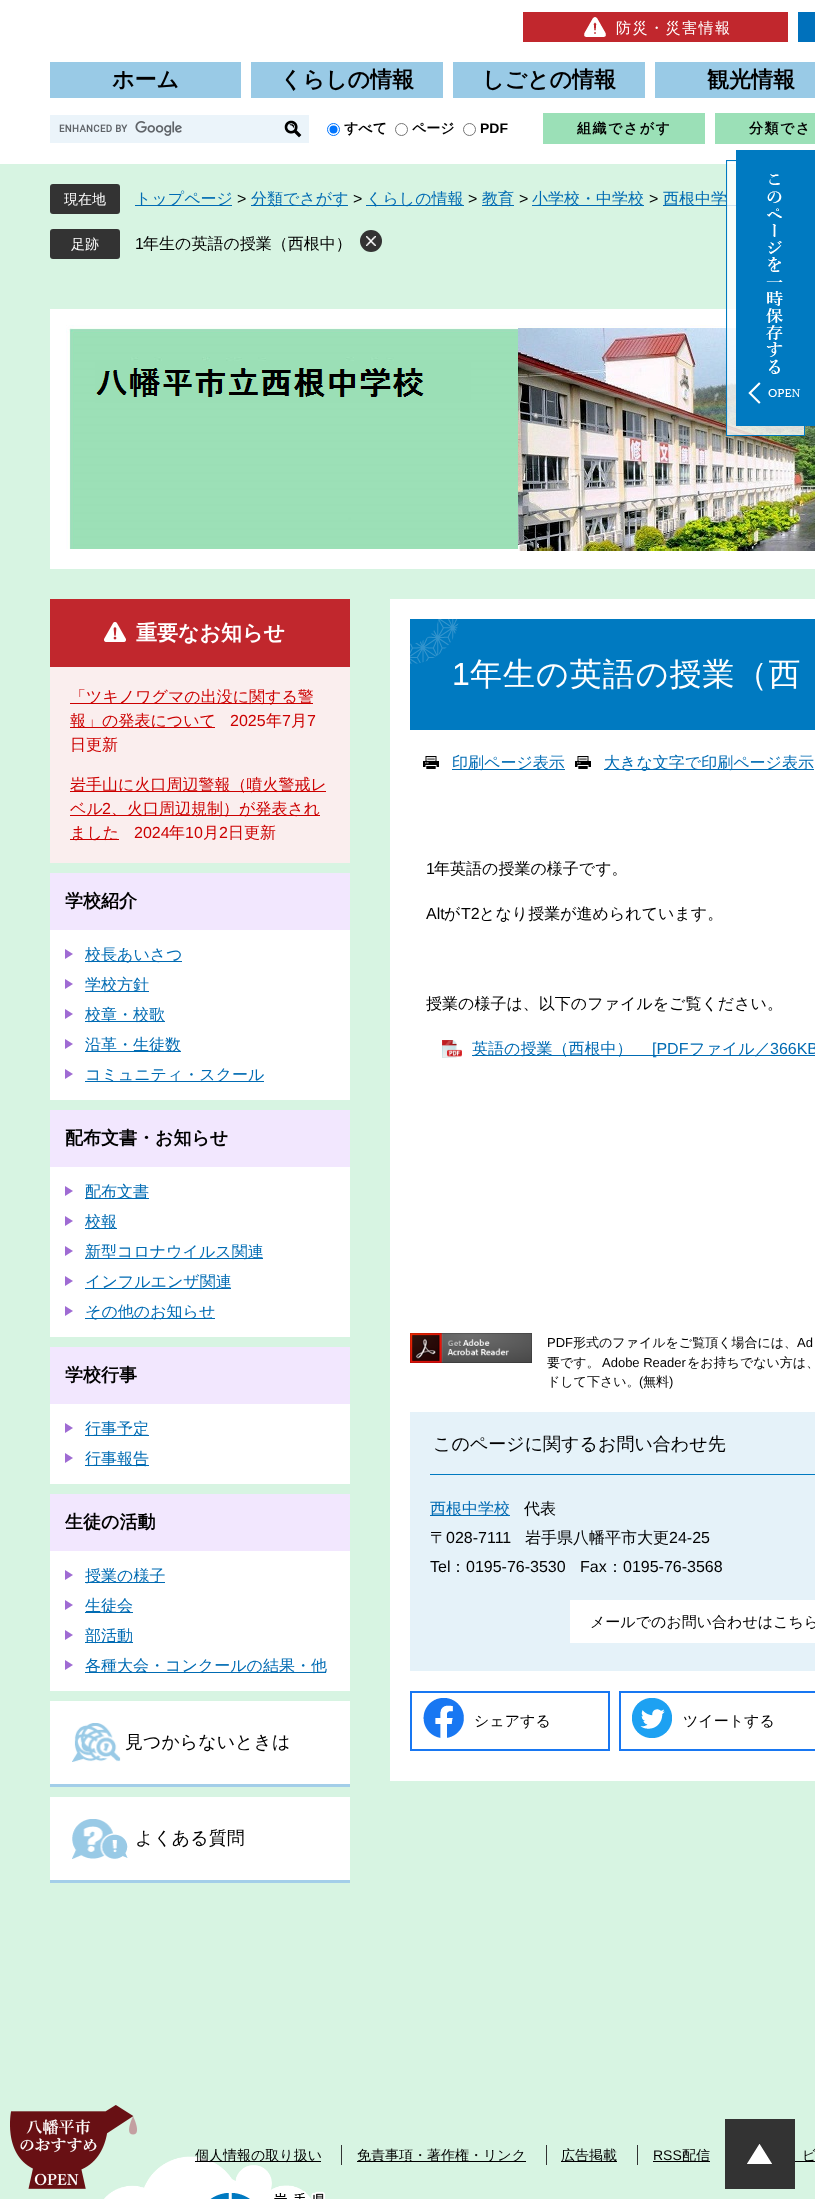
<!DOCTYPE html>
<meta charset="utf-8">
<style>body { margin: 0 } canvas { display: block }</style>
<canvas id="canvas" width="815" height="2199"></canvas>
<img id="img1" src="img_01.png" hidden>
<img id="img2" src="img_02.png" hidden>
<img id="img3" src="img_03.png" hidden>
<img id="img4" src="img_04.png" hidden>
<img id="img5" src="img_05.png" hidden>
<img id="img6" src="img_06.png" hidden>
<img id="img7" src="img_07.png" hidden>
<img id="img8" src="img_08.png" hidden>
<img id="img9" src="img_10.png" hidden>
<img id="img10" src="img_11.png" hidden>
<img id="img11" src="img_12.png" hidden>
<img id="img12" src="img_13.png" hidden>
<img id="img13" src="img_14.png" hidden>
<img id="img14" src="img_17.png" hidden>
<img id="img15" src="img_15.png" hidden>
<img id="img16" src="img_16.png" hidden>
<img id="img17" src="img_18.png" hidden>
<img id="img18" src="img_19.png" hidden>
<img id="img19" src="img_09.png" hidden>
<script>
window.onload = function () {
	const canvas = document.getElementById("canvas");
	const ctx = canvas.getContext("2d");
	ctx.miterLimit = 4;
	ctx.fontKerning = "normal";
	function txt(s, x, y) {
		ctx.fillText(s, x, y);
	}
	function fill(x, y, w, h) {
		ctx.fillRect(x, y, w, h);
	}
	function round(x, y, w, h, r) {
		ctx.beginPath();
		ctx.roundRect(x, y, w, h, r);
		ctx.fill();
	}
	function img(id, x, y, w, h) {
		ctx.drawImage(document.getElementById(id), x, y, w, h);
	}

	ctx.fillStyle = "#D7F4E2";
	fill(0, 0, 815, 2199);
	ctx.fillStyle = "#FFFFFF";
	fill(0, 0, 815, 164);
	ctx.fillStyle = "#C1272D";
	fill(523, 12, 265, 30);
	img("img1", 584, 17, 22, 20);
	ctx.fillStyle = "#0071BC";
	fill(798, 12, 17, 30);
	ctx.fillStyle = "#99CAE6";
	fill(50, 62, 191, 36);
	fill(251, 62, 192, 36);
	fill(453, 62, 192, 36);
	fill(655, 62, 160, 36);
	ctx.fillStyle = "#EBF4FA";
	fill(50, 115, 259, 28);
	img("img2", 59, 121, 123, 15);
	img("img3", 284, 120, 18, 18);
	ctx.beginPath();
	ctx.arc(333.5, 129.5, 6, 0, Math.PI * 2);
	ctx.strokeStyle = "#0075FF";
	ctx.stroke();
	ctx.fillStyle = "#0075FF";
	ctx.beginPath();
	ctx.arc(333.5, 129.5, 4, 0, Math.PI * 2);
	ctx.fill();
	ctx.beginPath();
	ctx.arc(401.5, 129.5, 6, 0, Math.PI * 2);
	ctx.strokeStyle = "#767676";
	ctx.stroke();
	ctx.beginPath();
	ctx.arc(469.5, 129.5, 6, 0, Math.PI * 2);
	ctx.stroke();
	ctx.fillStyle = "#9BE0B7";
	fill(543, 113, 162, 31);
	fill(715, 113, 100, 31);
	ctx.fillStyle = "#333333";
	round(50, 184, 70, 30, 3);
	ctx.fillStyle = "#006BB3";
	fill(135, 205, 97, 1);
	fill(251, 205, 97, 1);
	fill(366, 205, 98, 1);
	fill(482, 205, 32, 1);
	fill(532, 205, 112, 1);
	fill(663, 205, 80, 1);
	ctx.fillStyle = "#333333";
	round(50, 229, 70, 30, 3);
	ctx.beginPath();
	ctx.arc(371, 241, 11, 0, Math.PI * 2);
	ctx.fill();
	img("img4", 366, 236, 10, 10);
	img("img5", 50, 309, 765, 260);
	ctx.fillStyle = "#C1272D";
	fill(50, 599, 300, 68);
	img("img6", 104, 622, 22, 20);
	ctx.fillStyle = "#FAEEEE";
	fill(50, 667, 300, 196);
	ctx.fillStyle = "#CC0000";
	fill(70, 703, 243, 1);
	fill(70, 727, 145, 1);
	fill(70, 791, 256, 1);
	fill(70, 815, 250, 1);
	fill(70, 839, 49, 1);
	ctx.fillStyle = "#FFFFFF";
	fill(50, 930, 300, 170);
	ctx.fillStyle = "#F2E7FE";
	fill(50, 873, 300, 57);
	ctx.fillStyle = "#9F6BD3";
	ctx.beginPath();
	ctx.moveTo(65, 959);
	ctx.lineTo(65, 949);
	ctx.lineTo(73, 954);
	ctx.closePath();
	ctx.fill();
	ctx.fillStyle = "#006BB3";
	fill(85, 961, 97, 1);
	ctx.fillStyle = "#9F6BD3";
	ctx.beginPath();
	ctx.moveTo(65, 989);
	ctx.lineTo(65, 979);
	ctx.lineTo(73, 984);
	ctx.closePath();
	ctx.fill();
	ctx.fillStyle = "#006BB3";
	fill(85, 991, 64, 1);
	ctx.fillStyle = "#9F6BD3";
	ctx.beginPath();
	ctx.moveTo(65, 1019);
	ctx.lineTo(65, 1009);
	ctx.lineTo(73, 1014);
	ctx.closePath();
	ctx.fill();
	ctx.fillStyle = "#006BB3";
	fill(85, 1021, 80, 1);
	ctx.fillStyle = "#9F6BD3";
	ctx.beginPath();
	ctx.moveTo(65, 1049);
	ctx.lineTo(65, 1039);
	ctx.lineTo(73, 1044);
	ctx.closePath();
	ctx.fill();
	ctx.fillStyle = "#006BB3";
	fill(85, 1051, 96, 1);
	ctx.fillStyle = "#9F6BD3";
	ctx.beginPath();
	ctx.moveTo(65, 1079);
	ctx.lineTo(65, 1069);
	ctx.lineTo(73, 1074);
	ctx.closePath();
	ctx.fill();
	ctx.fillStyle = "#006BB3";
	fill(85, 1081, 179, 1);
	ctx.fillStyle = "#FFFFFF";
	fill(50, 1167, 300, 170);
	ctx.fillStyle = "#F2E7FE";
	fill(50, 1110, 300, 57);
	ctx.fillStyle = "#9F6BD3";
	ctx.beginPath();
	ctx.moveTo(65, 1196);
	ctx.lineTo(65, 1186);
	ctx.lineTo(73, 1191);
	ctx.closePath();
	ctx.fill();
	ctx.fillStyle = "#006BB3";
	fill(85, 1198, 64, 1);
	ctx.fillStyle = "#9F6BD3";
	ctx.beginPath();
	ctx.moveTo(65, 1226);
	ctx.lineTo(65, 1216);
	ctx.lineTo(73, 1221);
	ctx.closePath();
	ctx.fill();
	ctx.fillStyle = "#006BB3";
	fill(85, 1228, 32, 1);
	ctx.fillStyle = "#9F6BD3";
	ctx.beginPath();
	ctx.moveTo(65, 1256);
	ctx.lineTo(65, 1246);
	ctx.lineTo(73, 1251);
	ctx.closePath();
	ctx.fill();
	ctx.fillStyle = "#006BB3";
	fill(85, 1258, 178, 1);
	ctx.fillStyle = "#9F6BD3";
	ctx.beginPath();
	ctx.moveTo(65, 1286);
	ctx.lineTo(65, 1276);
	ctx.lineTo(73, 1281);
	ctx.closePath();
	ctx.fill();
	ctx.fillStyle = "#006BB3";
	fill(85, 1288, 146, 1);
	ctx.fillStyle = "#9F6BD3";
	ctx.beginPath();
	ctx.moveTo(65, 1316);
	ctx.lineTo(65, 1306);
	ctx.lineTo(73, 1311);
	ctx.closePath();
	ctx.fill();
	ctx.fillStyle = "#006BB3";
	fill(85, 1318, 130, 1);
	ctx.fillStyle = "#FFFFFF";
	fill(50, 1404, 300, 80);
	ctx.fillStyle = "#F2E7FE";
	fill(50, 1347, 300, 57);
	ctx.fillStyle = "#9F6BD3";
	ctx.beginPath();
	ctx.moveTo(65, 1433);
	ctx.lineTo(65, 1423);
	ctx.lineTo(73, 1428);
	ctx.closePath();
	ctx.fill();
	ctx.fillStyle = "#006BB3";
	fill(85, 1435, 64, 1);
	ctx.fillStyle = "#9F6BD3";
	ctx.beginPath();
	ctx.moveTo(65, 1463);
	ctx.lineTo(65, 1453);
	ctx.lineTo(73, 1458);
	ctx.closePath();
	ctx.fill();
	ctx.fillStyle = "#006BB3";
	fill(85, 1465, 64, 1);
	ctx.fillStyle = "#FFFFFF";
	fill(50, 1551, 300, 140);
	ctx.fillStyle = "#F2E7FE";
	fill(50, 1494, 300, 57);
	ctx.fillStyle = "#9F6BD3";
	ctx.beginPath();
	ctx.moveTo(65, 1580);
	ctx.lineTo(65, 1570);
	ctx.lineTo(73, 1575);
	ctx.closePath();
	ctx.fill();
	ctx.fillStyle = "#006BB3";
	fill(85, 1582, 80, 1);
	ctx.fillStyle = "#9F6BD3";
	ctx.beginPath();
	ctx.moveTo(65, 1610);
	ctx.lineTo(65, 1600);
	ctx.lineTo(73, 1605);
	ctx.closePath();
	ctx.fill();
	ctx.fillStyle = "#006BB3";
	fill(85, 1612, 48, 1);
	ctx.fillStyle = "#9F6BD3";
	ctx.beginPath();
	ctx.moveTo(65, 1640);
	ctx.lineTo(65, 1630);
	ctx.lineTo(73, 1635);
	ctx.closePath();
	ctx.fill();
	ctx.fillStyle = "#006BB3";
	fill(85, 1642, 48, 1);
	ctx.fillStyle = "#9F6BD3";
	ctx.beginPath();
	ctx.moveTo(65, 1670);
	ctx.lineTo(65, 1660);
	ctx.lineTo(73, 1665);
	ctx.closePath();
	ctx.fill();
	ctx.fillStyle = "#006BB3";
	fill(85, 1672, 241, 1);
	ctx.fillStyle = "#FFFFFF";
	fill(50, 1701, 300, 83);
	ctx.fillStyle = "#A3CEE9";
	fill(50, 1784, 300, 3);
	img("img7", 72, 1723, 49, 39);
	ctx.fillStyle = "#FFFFFF";
	fill(50, 1797, 300, 83);
	ctx.fillStyle = "#A3CEE9";
	fill(50, 1880, 300, 3);
	img("img8", 72, 1819, 56, 40);
	ctx.fillStyle = "#FFFFFF";
	fill(390, 599, 425, 1182);
	ctx.fillStyle = "#007AC1";
	fill(410, 619, 405, 111);
	img("img9", 423, 756, 16, 13);
	ctx.fillStyle = "#006BB3";
	fill(452, 769, 113, 1);
	img("img9", 575, 756, 16, 13);
	fill(604, 769, 210, 1);
	img("img10", 442, 1040, 20, 18);
	fill(472, 1055, 343, 1);
	img("img11", 410, 1333, 122, 30);
	ctx.fillStyle = "#E5F2F9";
	fill(410, 1412, 405, 259);
	ctx.fillStyle = "#007AC1";
	fill(430, 1474, 385, 1);
	ctx.fillStyle = "#006BB3";
	fill(430, 1515, 80, 1);
	ctx.fillStyle = "#FFFFFF";
	fill(570, 1600, 245, 43);
	img("img12", 423, 1698, 41, 40);
	ctx.strokeStyle = "#1877F2";
	ctx.lineWidth = 2;
	ctx.strokeRect(411, 1692, 198, 58);
	img("img13", 632, 1698, 40, 40);
	ctx.strokeRect(620, 1692, 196, 58);
	img("img14", 104, 2156, 207, 43);
	img("img15", 10, 2105, 127, 84);
	img("img16", 725, 2119, 70, 70);
	ctx.fillStyle = "#333333";
	fill(341, 2145, 1, 20);
	ctx.fillStyle = "#000000";
	fill(195, 2161, 126, 1);
	ctx.fillStyle = "#333333";
	fill(546, 2145, 1, 20);
	ctx.fillStyle = "#000000";
	fill(357, 2161, 169, 1);
	ctx.fillStyle = "#333333";
	fill(637, 2145, 1, 20);
	ctx.fillStyle = "#000000";
	fill(561, 2161, 56, 1);
	fill(653, 2161, 57, 1);
	fill(795, 2161, 20, 1);
	img("img17", 210, 2191, 116, 8);
	img("img18", 726, 150, 89, 286);
	ctx.letterSpacing = "1.5px";
	ctx.font = "500 15px WenQuanYi Zen Hei";
	ctx.fillStyle = "#FFFFFF";
	txt("防災・災害情報", 616, 33);
	ctx.letterSpacing = "0px";
	ctx.font = "bold 22px WenQuanYi Zen Hei";
	ctx.fillStyle = "#000000";
	txt("ホーム", 112, 87);
	txt("くらしの情報", 280, 87);
	txt("しごとの情報", 482, 87);
	txt("観光情報", 707, 87);
	ctx.font = "bold 14px WenQuanYi Zen Hei";
	txt("すべて", 344, 133);
	txt("ページ", 412, 133);
	ctx.font = "bold 14px Liberation Sans";
	txt("PDF", 480, 133);
	ctx.letterSpacing = "1.5px";
	ctx.font = "bold 14px WenQuanYi Zen Hei";
	txt("組織でさがす", 577, 133);
	txt("分類でさ", 749, 133);
	ctx.letterSpacing = "0px";
	ctx.font = "500 14px WenQuanYi Zen Hei";
	ctx.fillStyle = "#FFFFFF";
	txt("現在地", 64, 204);
	ctx.font = "500 16px WenQuanYi Zen Hei";
	ctx.fillStyle = "#006BB3";
	txt("トップページ", 135, 204);
	ctx.font = "16px Liberation Sans";
	ctx.fillStyle = "#000000";
	txt(">", 237, 204);
	ctx.font = "500 16px WenQuanYi Zen Hei";
	ctx.fillStyle = "#006BB3";
	txt("分類でさがす", 251, 204);
	ctx.font = "16px Liberation Sans";
	ctx.fillStyle = "#000000";
	txt(">", 353, 204);
	ctx.font = "500 16px WenQuanYi Zen Hei";
	ctx.fillStyle = "#006BB3";
	txt("くらしの情報", 366, 204);
	ctx.font = "16px Liberation Sans";
	ctx.fillStyle = "#000000";
	txt(">", 468, 204);
	ctx.font = "500 16px WenQuanYi Zen Hei";
	ctx.fillStyle = "#006BB3";
	txt("教育", 482, 204);
	ctx.font = "16px Liberation Sans";
	ctx.fillStyle = "#000000";
	txt(">", 519, 204);
	ctx.font = "500 16px WenQuanYi Zen Hei";
	ctx.fillStyle = "#006BB3";
	txt("小学校・中学校", 532, 204);
	ctx.font = "16px Liberation Sans";
	ctx.fillStyle = "#000000";
	txt(">", 649, 204);
	ctx.font = "500 16px WenQuanYi Zen Hei";
	ctx.fillStyle = "#006BB3";
	txt("西根中学", 663, 204);
	ctx.font = "500 14px WenQuanYi Zen Hei";
	ctx.fillStyle = "#FFFFFF";
	txt("足跡", 71, 249);
	ctx.font = "16px Liberation Sans";
	ctx.fillStyle = "#000000";
	txt("1", 135, 249);
	ctx.font = "500 16px WenQuanYi Zen Hei";
	txt("年生の英語の授業（西根中）", 143, 249);
	ctx.font = "bold 21px WenQuanYi Zen Hei";
	ctx.fillStyle = "#FFFFFF";
	txt("重要なお知らせ", 136, 640);
	ctx.font = "500 16px WenQuanYi Zen Hei";
	ctx.fillStyle = "#CC0000";
	txt("「ツキノワグマの出没に関する警", 70, 702);
	txt("報」の発表について", 70, 726);
	ctx.font = "16px Liberation Sans";
	txt("2025", 230, 726);
	ctx.font = "500 16px WenQuanYi Zen Hei";
	txt("年", 266, 726);
	ctx.font = "16px Liberation Sans";
	txt("7", 282, 726);
	ctx.font = "500 16px WenQuanYi Zen Hei";
	txt("月", 291, 726);
	ctx.font = "16px Liberation Sans";
	txt("7", 307, 726);
	ctx.font = "500 16px WenQuanYi Zen Hei";
	txt("日更新", 70, 750);
	txt("岩手山に火口周辺警報（噴火警戒レ", 70, 790);
	txt("ベル", 70, 814);
	ctx.font = "16px Liberation Sans";
	txt("2", 102, 814);
	ctx.font = "500 16px WenQuanYi Zen Hei";
	txt("、火口周辺規制）が発表され", 111, 814);
	txt("ました", 70, 838);
	ctx.font = "16px Liberation Sans";
	txt("2024", 134, 838);
	ctx.font = "500 16px WenQuanYi Zen Hei";
	txt("年", 169, 838);
	ctx.font = "16px Liberation Sans";
	txt("10", 185, 838);
	ctx.font = "500 16px WenQuanYi Zen Hei";
	txt("月", 203, 838);
	ctx.font = "16px Liberation Sans";
	txt("2", 219, 838);
	ctx.font = "500 16px WenQuanYi Zen Hei";
	txt("日更新", 228, 838);
	ctx.font = "bold 18px WenQuanYi Zen Hei";
	ctx.fillStyle = "#000000";
	txt("学校紹介", 65, 907);
	ctx.font = "500 16px WenQuanYi Zen Hei";
	ctx.fillStyle = "#006BB3";
	txt("校長あいさつ", 85, 960);
	txt("学校方針", 85, 990);
	txt("校章・校歌", 85, 1020);
	txt("沿革・生徒数", 85, 1050);
	txt("コミュニティ・スクール", 85, 1080);
	ctx.font = "bold 18px WenQuanYi Zen Hei";
	ctx.fillStyle = "#000000";
	txt("配布文書・お知らせ", 65, 1144);
	ctx.font = "500 16px WenQuanYi Zen Hei";
	ctx.fillStyle = "#006BB3";
	txt("配布文書", 85, 1197);
	txt("校報", 85, 1227);
	txt("新型コロナウイルス関連", 85, 1257);
	txt("インフルエンザ関連", 85, 1287);
	txt("その他のお知らせ", 85, 1317);
	ctx.font = "bold 18px WenQuanYi Zen Hei";
	ctx.fillStyle = "#000000";
	txt("学校行事", 65, 1381);
	ctx.font = "500 16px WenQuanYi Zen Hei";
	ctx.fillStyle = "#006BB3";
	txt("行事予定", 85, 1434);
	txt("行事報告", 85, 1464);
	ctx.font = "bold 18px WenQuanYi Zen Hei";
	ctx.fillStyle = "#000000";
	txt("生徒の活動", 65, 1528);
	ctx.font = "500 16px WenQuanYi Zen Hei";
	ctx.fillStyle = "#006BB3";
	txt("授業の様子", 85, 1581);
	txt("生徒会", 85, 1611);
	txt("部活動", 85, 1641);
	txt("各種大会・コンクールの結果・他", 85, 1671);
	ctx.font = "500 18px WenQuanYi Zen Hei";
	ctx.fillStyle = "#000000";
	txt("見つからないときは", 125, 1748);
	txt("よくある質問", 135, 1844);
	ctx.letterSpacing = "1px";
	ctx.font = "32px Liberation Sans";
	ctx.fillStyle = "#FFFFFF";
	txt("1", 452, 685);
	img("img19", 410, 619, 49, 45);
	ctx.font = "500 32px WenQuanYi Zen Hei";
	txt("年生の英語の授業（西", 470, 685);
	ctx.letterSpacing = "0px";
	ctx.font = "500 16px WenQuanYi Zen Hei";
	ctx.fillStyle = "#006BB3";
	txt("印刷ページ表示", 452, 768);
	txt("大きな文字で印刷ページ表示", 604, 768);
	ctx.font = "16px Liberation Sans";
	ctx.fillStyle = "#000000";
	txt("1", 426, 874);
	ctx.font = "500 16px WenQuanYi Zen Hei";
	txt("年英語の授業の様子です。", 434, 874);
	ctx.font = "16px Liberation Sans";
	txt("Alt", 426, 919);
	ctx.font = "500 16px WenQuanYi Zen Hei";
	txt("が", 444, 919);
	ctx.font = "16px Liberation Sans";
	txt("T2", 461, 919);
	ctx.font = "500 16px WenQuanYi Zen Hei";
	txt("となり授業が進められています。", 479, 919);
	txt("授業の様子は、以下のファイルをご覧ください。", 426, 1009);
	ctx.fillStyle = "#006BB3";
	txt("英語の授業（西根中）", 472, 1054);
	ctx.font = "16px Liberation Sans";
	txt("[PDF", 652, 1054);
	ctx.font = "500 16px WenQuanYi Zen Hei";
	txt("ファイル／", 689, 1054);
	ctx.font = "16px Liberation Sans";
	txt("366KB", 770, 1054);
	ctx.font = "13px Liberation Sans";
	ctx.fillStyle = "#000000";
	txt("PDF", 547, 1347);
	ctx.font = "500 13px WenQuanYi Zen Hei";
	txt("形式のファイルをご覧頂く場合には、", 573, 1347);
	ctx.font = "13px Liberation Sans";
	txt("Ad", 797, 1347);
	ctx.font = "500 13px WenQuanYi Zen Hei";
	txt("要です。", 547, 1367);
	ctx.font = "13px Liberation Sans";
	txt("Adobe Reader", 602, 1367);
	ctx.font = "500 13px WenQuanYi Zen Hei";
	txt("をお持ちでない方は、", 687, 1367);
	txt("ドして下さい。", 547, 1386);
	ctx.font = "13px Liberation Sans";
	txt("(", 639, 1386);
	ctx.font = "500 13px WenQuanYi Zen Hei";
	txt("無料", 643, 1386);
	ctx.font = "13px Liberation Sans";
	txt(")", 669, 1386);
	ctx.font = "500 18px WenQuanYi Zen Hei";
	txt("このページに関するお問い合わせ先", 433, 1450);
	ctx.font = "500 16px WenQuanYi Zen Hei";
	ctx.fillStyle = "#006BB3";
	txt("西根中学校", 430, 1514);
	ctx.fillStyle = "#000000";
	txt("代表", 524, 1514);
	txt("〒", 430, 1543);
	ctx.font = "16px Liberation Sans";
	txt("028-7111", 446, 1543);
	ctx.font = "500 16px WenQuanYi Zen Hei";
	txt("岩手県八幡平市大更", 525, 1543);
	ctx.font = "16px Liberation Sans";
	txt("24-25", 669, 1543);
	txt("Tel", 430, 1572);
	ctx.font = "500 16px WenQuanYi Zen Hei";
	txt("：", 450, 1572);
	ctx.font = "16px Liberation Sans";
	txt("0195-76-3530", 466, 1572);
	txt("Fax", 580, 1572);
	ctx.font = "500 16px WenQuanYi Zen Hei";
	txt("：", 607, 1572);
	ctx.font = "16px Liberation Sans";
	txt("0195-76-3568", 623, 1572);
	ctx.font = "500 15px WenQuanYi Zen Hei";
	txt("メールでのお問い合わせはこちら", 590, 1627);
	txt("シェアする", 474, 1726);
	txt("ツイートする", 683, 1726);
	ctx.font = "500 14px WenQuanYi Zen Hei";
	txt("個人情報の取り扱い", 195, 2160);
	txt("免責事項・著作権・リンク", 357, 2160);
	txt("広告掲載", 561, 2160);
	ctx.font = "14px Liberation Sans";
	txt("RSS", 653, 2160);
	ctx.font = "500 14px WenQuanYi Zen Hei";
	txt("配信", 682, 2160);
	txt("ビ", 802, 2160);
};
</script>
